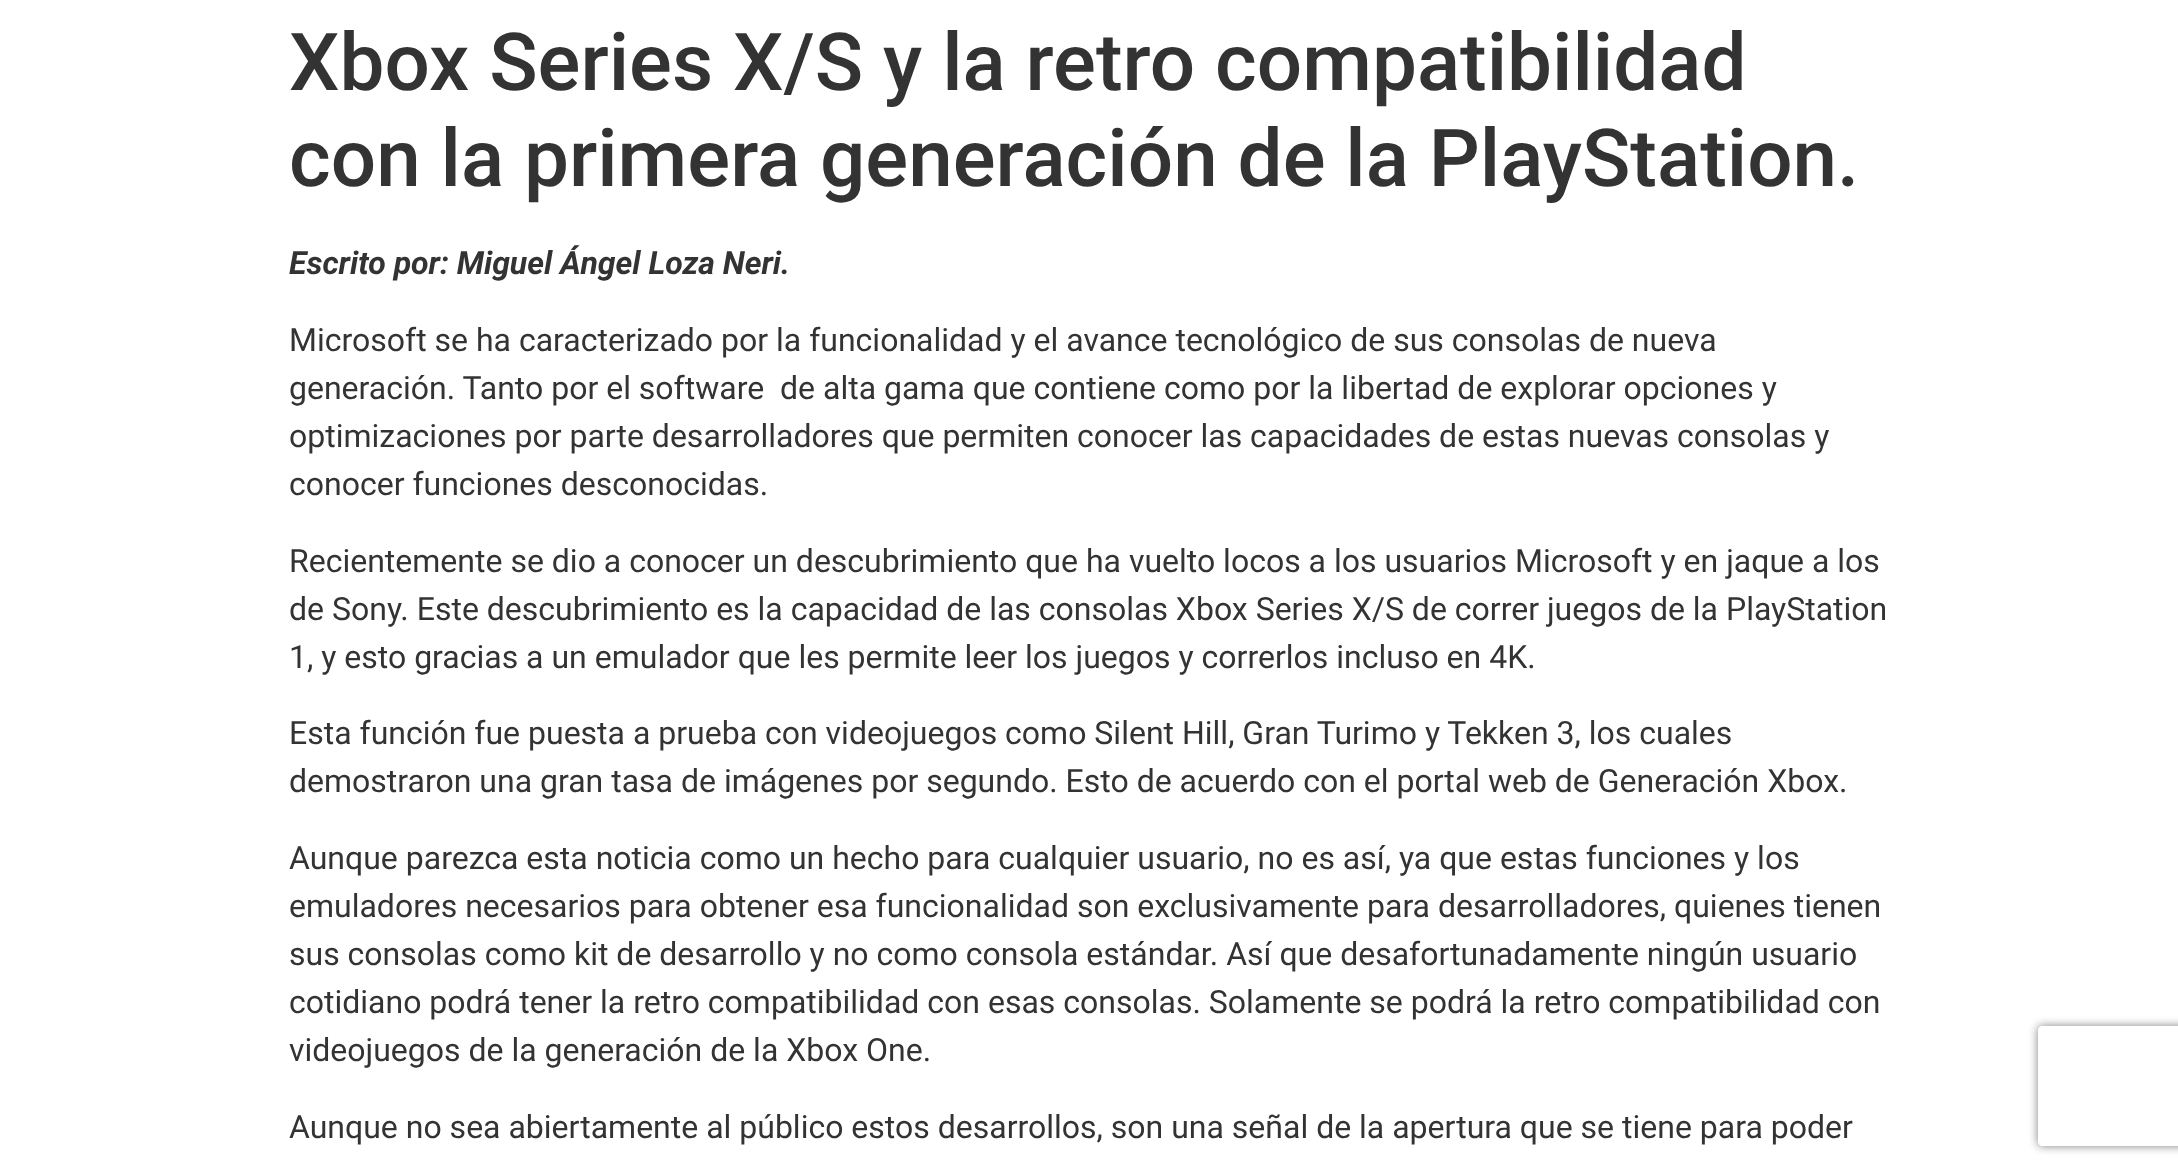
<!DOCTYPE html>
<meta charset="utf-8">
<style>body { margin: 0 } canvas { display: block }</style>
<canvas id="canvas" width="2178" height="1173"></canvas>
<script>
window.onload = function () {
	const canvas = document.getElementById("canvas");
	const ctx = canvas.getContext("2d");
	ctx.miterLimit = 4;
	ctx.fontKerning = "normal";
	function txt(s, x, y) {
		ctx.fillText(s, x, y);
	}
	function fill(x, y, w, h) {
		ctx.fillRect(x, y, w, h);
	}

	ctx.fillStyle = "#FFFFFF";
	fill(0, 0, 2178, 1173);
	ctx.save();
	ctx.beginPath();
	ctx.moveTo(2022, 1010);
	ctx.lineTo(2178, 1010);
	ctx.lineTo(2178, 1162);
	ctx.lineTo(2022, 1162);
	ctx.closePath();
	ctx.moveTo(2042, 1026);
	ctx.lineTo(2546, 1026);
	ctx.bezierCurveTo(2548, 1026, 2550, 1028, 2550, 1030);
	ctx.lineTo(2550, 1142);
	ctx.bezierCurveTo(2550, 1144, 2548, 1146, 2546, 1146);
	ctx.lineTo(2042, 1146);
	ctx.bezierCurveTo(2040, 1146, 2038, 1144, 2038, 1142);
	ctx.lineTo(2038, 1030);
	ctx.bezierCurveTo(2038, 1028, 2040, 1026, 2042, 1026);
	ctx.closePath();
	ctx.clip("evenodd");
	ctx.fillStyle = "#808080";
	ctx.filter = "blur(5px)";
	ctx.beginPath();
	ctx.roundRect(2038, 1026, 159, 120, 4);
	ctx.fill();
	ctx.filter = "none";
	ctx.restore();
	ctx.font = "500 80px Roboto";
	ctx.fillStyle = "#333333";
	txt("Xbox Series X/S y la retro compatibilidad", 289, 90);
	txt("con la primera generación de la PlayStation.", 289, 186);
	ctx.font = "italic bold 32px Roboto";
	txt("Escrito por: Miguel Ángel Loza Neri.", 289, 274);
	ctx.font = "32px Roboto";
	txt("Microsoft se ha caracterizado por la funcionalidad y el avance tecnológico de sus consolas de nueva", 289, 351);
	txt("generación. Tanto por el software  de alta gama que contiene como por la libertad de explorar opciones y", 289, 399);
	txt("optimizaciones por parte desarrolladores que permiten conocer las capacidades de estas nuevas consolas y", 289, 447);
	txt("conocer funciones desconocidas.", 289, 495);
	txt("Recientemente se dio a conocer un descubrimiento que ha vuelto locos a los usuarios Microsoft y en jaque a los", 289, 572);
	txt("de Sony. Este descubrimiento es la capacidad de las consolas Xbox Series X/S de correr juegos de la PlayStation", 289, 620);
	txt("1, y esto gracias a un emulador que les permite leer los juegos y correrlos incluso en 4K.", 289, 668);
	txt("Esta función fue puesta a prueba con videojuegos como Silent Hill, Gran Turimo y Tekken 3, los cuales", 289, 744);
	txt("demostraron una gran tasa de imágenes por segundo. Esto de acuerdo con el portal web de Generación Xbox.", 289, 792);
	txt("Aunque parezca esta noticia como un hecho para cualquier usuario, no es así, ya que estas funciones y los", 289, 869);
	txt("emuladores necesarios para obtener esa funcionalidad son exclusivamente para desarrolladores, quienes tienen", 289, 917);
	txt("sus consolas como kit de desarrollo y no como consola estándar. Así que desafortunadamente ningún usuario", 289, 965);
	txt("cotidiano podrá tener la retro compatibilidad con esas consolas. Solamente se podrá la retro compatibilidad con", 289, 1013);
	txt("videojuegos de la generación de la Xbox One.", 289, 1061);
	txt("Aunque no sea abiertamente al público estos desarrollos, son una señal de la apertura que se tiene para poder", 289, 1138);
};
</script>
